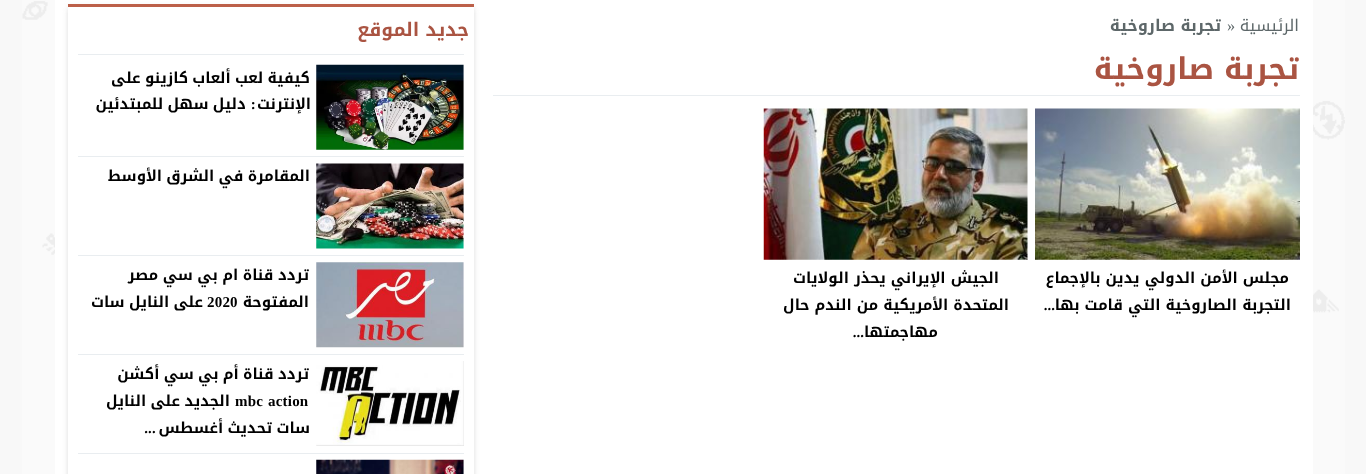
<!DOCTYPE html>
<meta charset="utf-8">
<style>body { margin: 0 } canvas { display: block }</style>
<canvas id="canvas" width="1366" height="474"></canvas>
<img id="img1" src="img_01.png" hidden>
<img id="img2" src="img_02.png" hidden>
<img id="img3" src="img_03.png" hidden>
<img id="img4" src="img_04.png" hidden>
<img id="img5" src="img_05.png" hidden>
<img id="img6" src="img_06.png" hidden>
<img id="img7" src="img_07.png" hidden>
<img id="img8" src="img_08.png" hidden>
<script>
window.onload = function () {
	const canvas = document.getElementById("canvas");
	const ctx = canvas.getContext("2d");
	ctx.miterLimit = 4;
	ctx.fontKerning = "normal";
	function txt(s, x, y) {
		ctx.fillText(s, x, y);
	}
	function fill(x, y, w, h) {
		ctx.fillRect(x, y, w, h);
	}
	function img(id, x, y, w, h) {
		ctx.drawImage(document.getElementById(id), x, y, w, h);
	}

	ctx.fillStyle = "#F8F8F8";
	fill(0, 0, 1366, 474);
	img("img1", 22, 0, 1323, 474);
	ctx.fillStyle = "#FFFFFF";
	fill(55, 0, 1258, 474);
	ctx.fillStyle = "#E9EDF0";
	fill(493, 95, 807, 1);
	img("img2", 1035, 108, 265, 152);
	img("img3", 763, 108, 265, 152);
	ctx.fillStyle = "#D1D1D1";
	ctx.filter = "blur(3px)";
	ctx.beginPath();
	ctx.rect(69, 8, 404, 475);
	ctx.fill();
	ctx.filter = "none";
	ctx.fillStyle = "#FFFFFF";
	fill(68, 7, 406, 467);
	ctx.fillStyle = "#BC6049";
	fill(68, 4, 406, 3);
	ctx.fillStyle = "#E9EDF0";
	fill(78, 54, 386, 1);
	fill(78, 156, 386, 1);
	img("img4", 316, 64, 148, 86);
	fill(78, 255, 386, 1);
	img("img5", 316, 163, 148, 86);
	fill(78, 354, 386, 1);
	img("img6", 316, 262, 148, 86);
	fill(78, 453, 386, 1);
	img("img7", 316, 361, 148, 85);
	img("img8", 316, 459, 148, 15);
	ctx.direction = "rtl";
	ctx.font = "16.25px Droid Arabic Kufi";
	ctx.fillStyle = "#5D6769";
	txt("الرئيسية", 1299, 31);
	ctx.direction = "ltr";
	ctx.font = "16.25px Liberation Serif";
	txt("»", 1227, 31);
	ctx.direction = "rtl";
	ctx.font = "bold 16.25px Droid Arabic Kufi";
	txt("تجربة صاروخية", 1221, 31);
	ctx.font = "bold 30px Droid Arabic Kufi";
	ctx.fillStyle = "#AA5442";
	txt("تجربة صاروخية", 1299, 79);
	ctx.font = "bold 15px Droid Arabic Kufi";
	ctx.fillStyle = "#000000";
	txt("مجلس الأمن الدولي يدين بالإجماع", 1289, 283);
	txt("التجربة الصاروخية التي قامت بها", 1291, 310);
	ctx.font = "bold 15px Liberation Serif";
	txt("...", 1055, 310);
	ctx.font = "bold 15px Droid Arabic Kufi";
	txt("الجيش الإيراني يحذر الولايات", 999, 283);
	txt("المتحدة الأمريكية من الندم حال", 1009, 310);
	txt("مهاجمتها", 938, 337);
	ctx.font = "bold 15px Liberation Serif";
	txt("...", 864, 337);
	ctx.letterSpacing = "0.6px";
	ctx.wordSpacing = "-1px";
	ctx.font = "bold 18.75px Droid Arabic Kufi";
	ctx.fillStyle = "#AA5442";
	txt("جديد الموقع", 469, 36);
	ctx.letterSpacing = "0.2px";
	ctx.font = "bold 15px Droid Arabic Kufi";
	ctx.fillStyle = "#000000";
	txt("كيفية لعب ألعاب كازينو على", 310, 83);
	ctx.wordSpacing = "0px";
	txt("الإنترنت", 311, 109);
	ctx.font = "bold 15px Liberation Serif";
	txt(":", 256, 109);
	ctx.wordSpacing = "-1px";
	ctx.font = "bold 15px Droid Arabic Kufi";
	txt("دليل سهل للمبتدئين", 246, 109);
	txt("المقامرة في الشرق الأوسط", 310, 181);
	ctx.wordSpacing = "-0.75px";
	txt("تردد قناة ام بي سي مصر", 309, 280);
	ctx.wordSpacing = "0px";
	txt("المفتوحة", 309, 307);
	ctx.direction = "ltr";
	ctx.font = "bold 15px Liberation Serif";
	txt("2020", 207, 307);
	ctx.wordSpacing = "-1px";
	ctx.direction = "rtl";
	ctx.font = "bold 15px Droid Arabic Kufi";
	txt("على النايل سات", 203, 307);
	txt("تردد قناة أم بي سي أكشن", 309, 379);
	ctx.wordSpacing = "1px";
	ctx.direction = "ltr";
	ctx.font = "bold 15px Liberation Serif";
	txt("mbc action", 235, 406);
	ctx.wordSpacing = "0px";
	ctx.direction = "rtl";
	ctx.font = "bold 15px Droid Arabic Kufi";
	txt("الجديد", 230, 406);
	ctx.wordSpacing = "-1px";
	txt("على النايل", 180, 406);
	txt("سات تحديث أغسطس", 310, 433);
	ctx.wordSpacing = "0px";
	ctx.font = "bold 15px Liberation Serif";
	txt("...", 156, 433);
};
</script>
